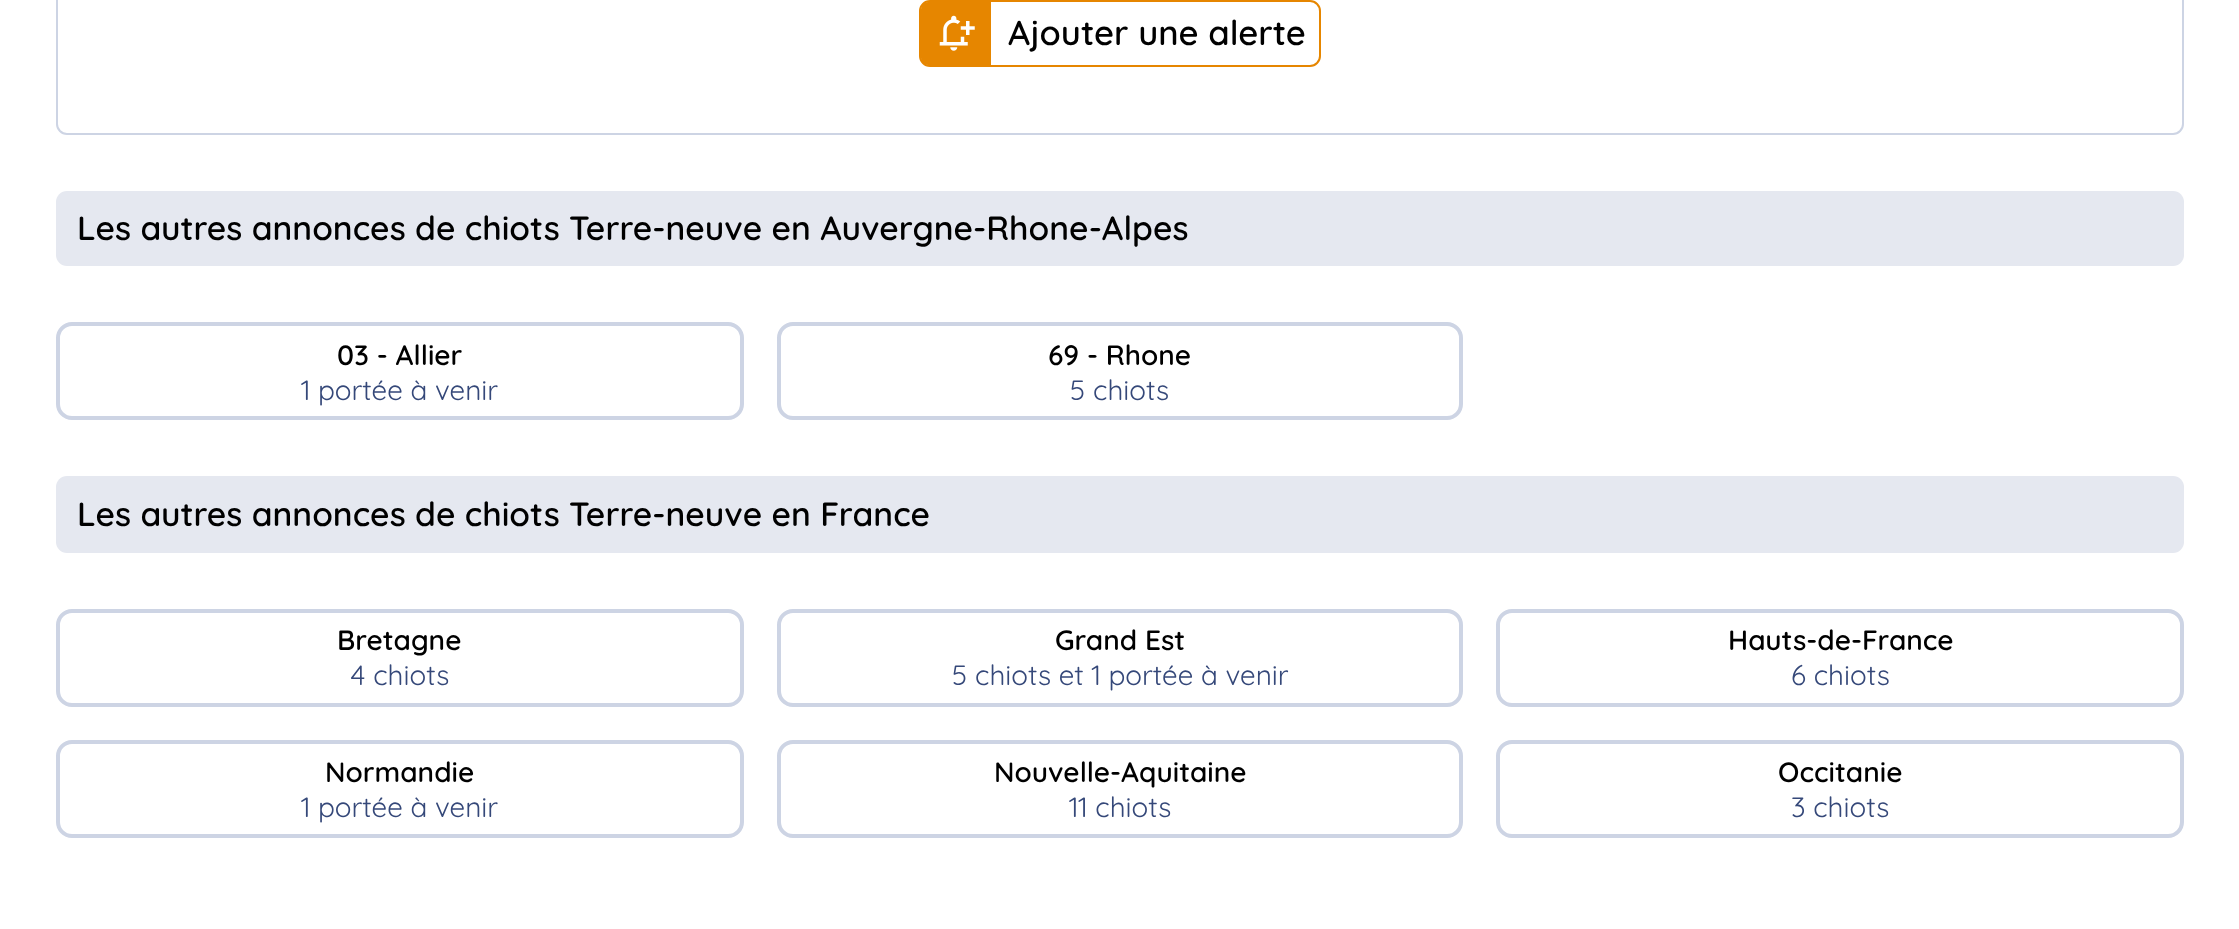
<!DOCTYPE html>
<meta charset="utf-8">
<style>body { margin: 0 } canvas { display: block }</style>
<canvas id="canvas" width="2239" height="929"></canvas>
<img id="img1" src="img_01.png" hidden>
<script>
window.onload = function () {
	const canvas = document.getElementById("canvas");
	const ctx = canvas.getContext("2d");
	ctx.miterLimit = 4;
	ctx.fontKerning = "normal";
	function txt(s, x, y) {
		ctx.fillText(s, x, y);
	}
	function fill(x, y, w, h) {
		ctx.fillRect(x, y, w, h);
	}
	function round(x, y, w, h, r) {
		ctx.beginPath();
		ctx.roundRect(x, y, w, h, r);
		ctx.fill();
	}
	function img(id, x, y, w, h) {
		ctx.drawImage(document.getElementById(id), x, y, w, h);
	}

	ctx.fillStyle = "#FFFFFF";
	fill(0, 0, 2239, 929);
	ctx.beginPath();
	ctx.roundRect(57, -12, 2126, 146, 10);
	ctx.strokeStyle = "#CDD4E4";
	ctx.lineWidth = 2;
	ctx.stroke();
	ctx.beginPath();
	ctx.roundRect(920, 1, 400, 65, 10);
	ctx.strokeStyle = "#E68600";
	ctx.stroke();
	ctx.fillStyle = "#E68600";
	ctx.beginPath();
	ctx.roundRect(921, 2, 70, 63, [7, 0, 0, 7]);
	ctx.fill();
	img("img1", 939, 15, 36, 36);
	ctx.fillStyle = "#E5E8F0";
	round(56, 191, 2128, 75, 11);
	ctx.beginPath();
	ctx.roundRect(58, 324, 684, 94, 14);
	ctx.strokeStyle = "#CDD4E4";
	ctx.lineWidth = 4;
	ctx.stroke();
	ctx.beginPath();
	ctx.roundRect(779, 324, 682, 94, 14);
	ctx.stroke();
	round(56, 476, 2128, 77, 11);
	ctx.beginPath();
	ctx.roundRect(58, 611, 684, 94, 14);
	ctx.stroke();
	ctx.beginPath();
	ctx.roundRect(779, 611, 682, 94, 14);
	ctx.stroke();
	ctx.beginPath();
	ctx.roundRect(1498, 611, 684, 94, 14);
	ctx.stroke();
	ctx.beginPath();
	ctx.roundRect(58, 742, 684, 94, 14);
	ctx.stroke();
	ctx.beginPath();
	ctx.roundRect(779, 742, 682, 94, 14);
	ctx.stroke();
	ctx.beginPath();
	ctx.roundRect(1498, 742, 684, 94, 14);
	ctx.stroke();
	ctx.font = "600 34.5px Quicksand";
	ctx.fillStyle = "#000000";
	txt("Ajouter une alerte", 1008, 45);
	ctx.font = "600 33.6px Quicksand";
	txt("Les autres annonces de chiots Terre-neuve en Auvergne-Rhone-Alpes", 77, 240);
	ctx.font = "600 28px Quicksand";
	txt("03 - Allier", 337, 365);
	ctx.font = "300 28px Quicksand";
	ctx.fillStyle = "#354879";
	txt("1 portée à venir", 301, 400);
	ctx.font = "600 28px Quicksand";
	ctx.fillStyle = "#000000";
	txt("69 - Rhone", 1048, 365);
	ctx.font = "300 28px Quicksand";
	ctx.fillStyle = "#354879";
	txt("5 chiots", 1070, 400);
	ctx.font = "600 33.6px Quicksand";
	ctx.fillStyle = "#000000";
	txt("Les autres annonces de chiots Terre-neuve en France", 77, 526);
	ctx.font = "600 28px Quicksand";
	txt("Bretagne", 337, 650);
	ctx.font = "300 28px Quicksand";
	ctx.fillStyle = "#354879";
	txt("4 chiots", 350, 685);
	ctx.font = "600 28px Quicksand";
	ctx.fillStyle = "#000000";
	txt("Grand Est", 1055, 650);
	ctx.font = "300 28px Quicksand";
	ctx.fillStyle = "#354879";
	txt("5 chiots et 1 portée à venir", 952, 685);
	ctx.font = "600 28px Quicksand";
	ctx.fillStyle = "#000000";
	txt("Hauts-de-France", 1728, 650);
	ctx.font = "300 28px Quicksand";
	ctx.fillStyle = "#354879";
	txt("6 chiots", 1791, 685);
	ctx.font = "600 28px Quicksand";
	ctx.fillStyle = "#000000";
	txt("Normandie", 325, 782);
	ctx.font = "300 28px Quicksand";
	ctx.fillStyle = "#354879";
	txt("1 portée à venir", 301, 817);
	ctx.font = "600 28px Quicksand";
	ctx.fillStyle = "#000000";
	txt("Nouvelle-Aquitaine", 994, 782);
	ctx.font = "300 28px Quicksand";
	ctx.fillStyle = "#354879";
	txt("11 chiots", 1069, 817);
	ctx.font = "600 28px Quicksand";
	ctx.fillStyle = "#000000";
	txt("Occitanie", 1778, 782);
	ctx.font = "300 28px Quicksand";
	ctx.fillStyle = "#354879";
	txt("3 chiots", 1791, 817);
};
</script>
